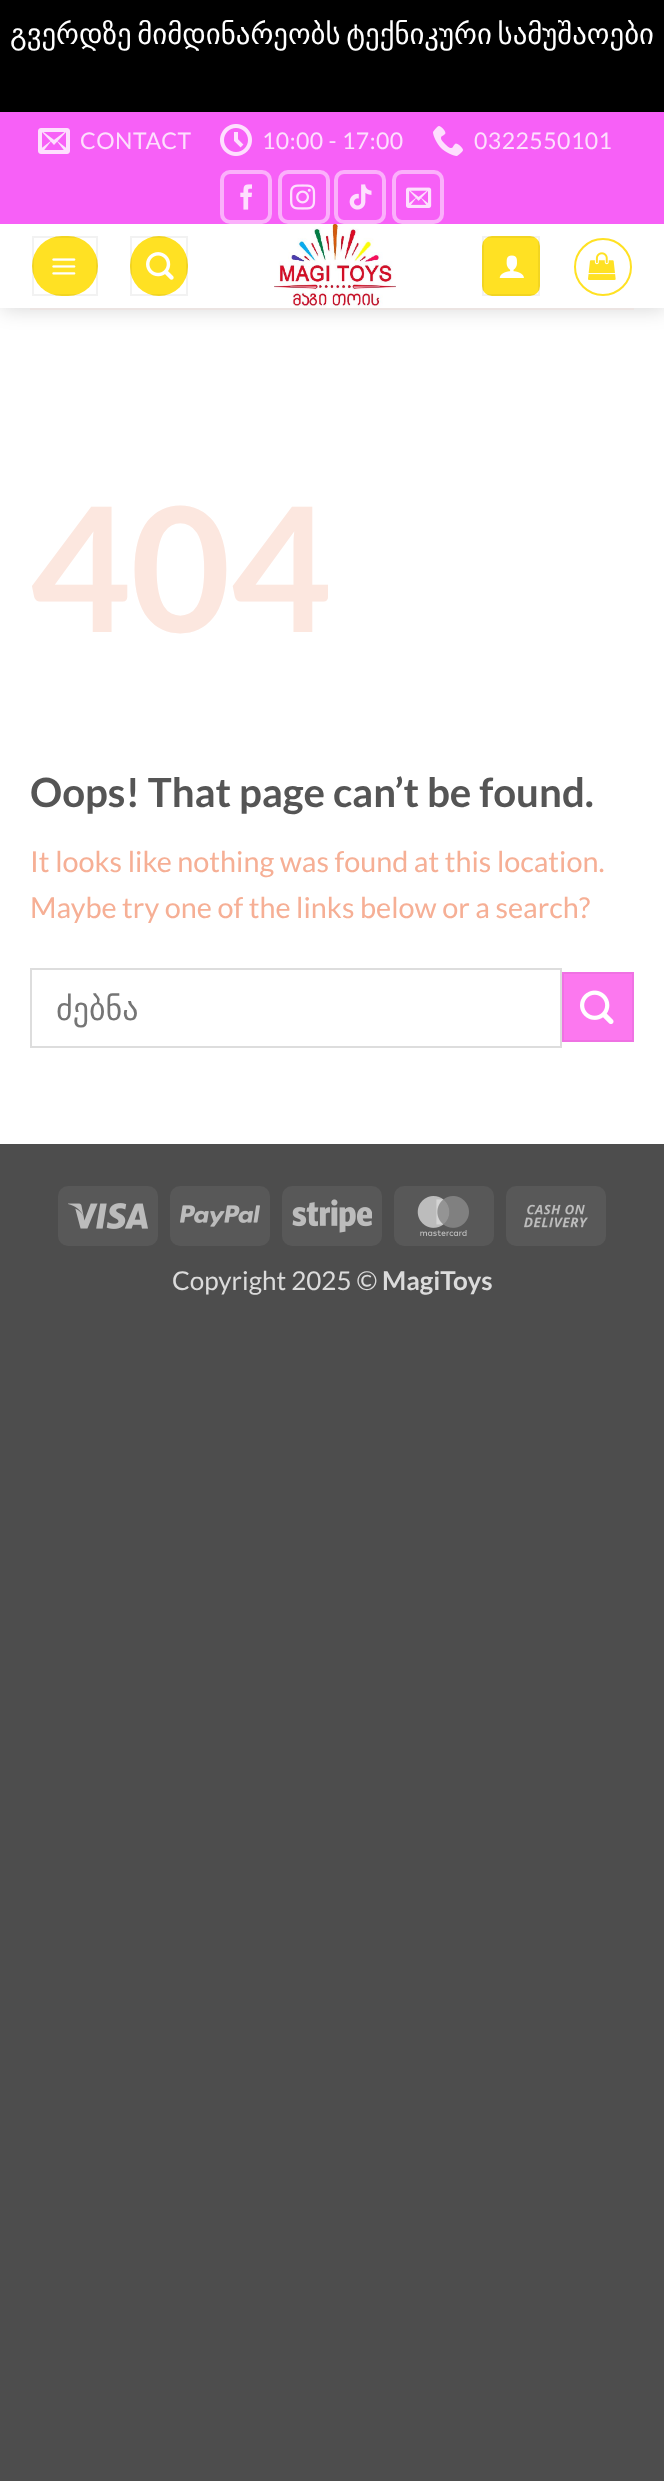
<!DOCTYPE html>
<meta charset="utf-8">
<style>body { margin: 0 } canvas { display: block }</style>
<canvas id="canvas" width="664" height="2481"></canvas>
<img id="img1" src="img_01.png" hidden>
<img id="img2" src="img_02.png" hidden>
<img id="img3" src="img_03.png" hidden>
<img id="img4" src="img_04.png" hidden>
<img id="img5" src="img_05.png" hidden>
<img id="img6" src="img_06.png" hidden>
<img id="img7" src="img_07.png" hidden>
<img id="img8" src="img_08.png" hidden>
<img id="img9" src="img_09.png" hidden>
<img id="img10" src="img_10.png" hidden>
<img id="img11" src="img_11.png" hidden>
<img id="img12" src="img_12.png" hidden>
<img id="img13" src="img_13.png" hidden>
<img id="img14" src="img_14.png" hidden>
<img id="img15" src="img_15.png" hidden>
<img id="img16" src="img_16.png" hidden>
<img id="img17" src="img_17.png" hidden>
<img id="img18" src="img_18.png" hidden>
<script>
window.onload = function () {
	const canvas = document.getElementById("canvas");
	const ctx = canvas.getContext("2d");
	ctx.miterLimit = 4;
	ctx.fontKerning = "normal";
	function txt(s, x, y) {
		ctx.fillText(s, x, y);
	}
	function fill(x, y, w, h) {
		ctx.fillRect(x, y, w, h);
	}
	function round(x, y, w, h, r) {
		ctx.beginPath();
		ctx.roundRect(x, y, w, h, r);
		ctx.fill();
	}
	function img(id, x, y, w, h) {
		ctx.drawImage(document.getElementById(id), x, y, w, h);
	}

	ctx.fillStyle = "#4D4D4D";
	fill(0, 0, 664, 2481);
	ctx.fillStyle = "#000000";
	fill(0, 0, 664, 112);
	ctx.fillStyle = "#FFFFFF";
	fill(0, 308, 664, 836);
	ctx.fillStyle = "rgba(0, 0, 0, 0.15)";
	ctx.filter = "blur(10px)";
	ctx.beginPath();
	ctx.rect(2, 114, 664, 196);
	ctx.fill();
	ctx.filter = "none";
	ctx.fillStyle = "#F760F7";
	fill(0, 112, 664, 112);
	img("img1", 38, 128, 32, 26);
	img("img2", 220, 124, 32, 32);
	img("img3", 433, 126, 30, 30);
	ctx.beginPath();
	ctx.roundRect(222, 172, 48, 50, 8);
	ctx.strokeStyle = "#FBB0FB";
	ctx.lineWidth = 4;
	ctx.stroke();
	img("img4", 240, 184, 12, 26);
	ctx.beginPath();
	ctx.roundRect(280, 172, 48, 50, 8);
	ctx.stroke();
	img("img5", 290, 184, 26, 26);
	ctx.beginPath();
	ctx.roundRect(336, 172, 48, 50, 8);
	ctx.stroke();
	img("img6", 349, 184, 23, 26);
	ctx.beginPath();
	ctx.roundRect(394, 172, 48, 50, 8);
	ctx.stroke();
	img("img7", 406, 187, 26, 21);
	ctx.fillStyle = "#FFFFFF";
	fill(0, 224, 664, 84);
	ctx.fillStyle = "#FFE123";
	round(32, 236, 66, 60, 30);
	ctx.strokeStyle = "rgba(0, 0, 0, 0.05)";
	ctx.lineWidth = 2;
	ctx.strokeRect(33, 237, 64, 58);
	img("img8", 52, 258, 24, 17);
	round(130, 236, 58, 60, 29);
	ctx.strokeRect(131, 237, 56, 58);
	img("img9", 146, 252, 28, 28);
	img("img10", 274, 224, 122, 84);
	round(482, 236, 58, 60, 10);
	ctx.strokeRect(483, 237, 56, 58);
	img("img11", 499, 255, 25, 23);
	ctx.beginPath();
	ctx.arc(603, 267, 28, 0, Math.PI * 2);
	ctx.strokeStyle = "#FFE123";
	ctx.stroke();
	img("img12", 588, 252, 28, 28);
	ctx.fillStyle = "#ECE4E2";
	fill(30, 308, 604, 2);
	ctx.strokeStyle = "#DDDDDD";
	ctx.strokeRect(31, 969, 530, 78);
	ctx.fillStyle = "#FC78EF";
	ctx.beginPath();
	ctx.rect(563, 973, 70, 68);
	ctx.fill();
	ctx.strokeStyle = "#EF72E3";
	ctx.stroke();
	img("img13", 580, 990, 34, 34);
	ctx.fillStyle = "#585858";
	round(58, 1186, 100, 60, 10);
	img("img14", 68, 1203, 80, 26);
	round(170, 1186, 100, 60, 10);
	img("img15", 180, 1205, 80, 22);
	round(282, 1186, 100, 60, 10);
	img("img16", 292, 1199, 80, 34);
	round(394, 1186, 100, 60, 10);
	img("img17", 417, 1196, 52, 40);
	round(506, 1186, 100, 60, 10);
	img("img18", 524, 1204, 64, 24);
	ctx.wordSpacing = "-3.5px";
	ctx.font = "28.8px DejaVu Sans";
	ctx.fillStyle = "#FFFFFF";
	txt("გვერდზე მიმდინარეობს ტექნიკური სამუშაოები", 10, 44);
	ctx.letterSpacing = "0.5px";
	ctx.wordSpacing = "0px";
	ctx.font = "23px Lato";
	ctx.fillStyle = "#FDDFFD";
	txt("CONTACT", 80, 149);
	txt("10:00 - 17:00", 262, 149);
	txt("0322550101", 474, 149);
	ctx.letterSpacing = "0px";
	ctx.font = "bold 173px Lato";
	ctx.fillStyle = "#FCE7DF";
	txt("404", 30, 632);
	ctx.font = "bold 40.25px Lato";
	ctx.fillStyle = "#555555";
	txt("Oops! That page can’t be found.", 30, 807);
	ctx.font = "28.8px Lato";
	ctx.fillStyle = "#F6AF95";
	txt("It looks like nothing was found at this location.", 30, 872);
	txt("Maybe try one of the links below or a search?", 30, 918);
	ctx.font = "32px DejaVu Sans";
	ctx.fillStyle = "#757575";
	txt("ძებნა", 56, 1020);
	ctx.font = "26px Lato";
	ctx.fillStyle = "#DBDBDB";
	txt("Copyright 2025 ©", 172, 1290);
	ctx.font = "bold 26px Lato";
	txt("MagiToys", 382, 1290);
};
</script>
